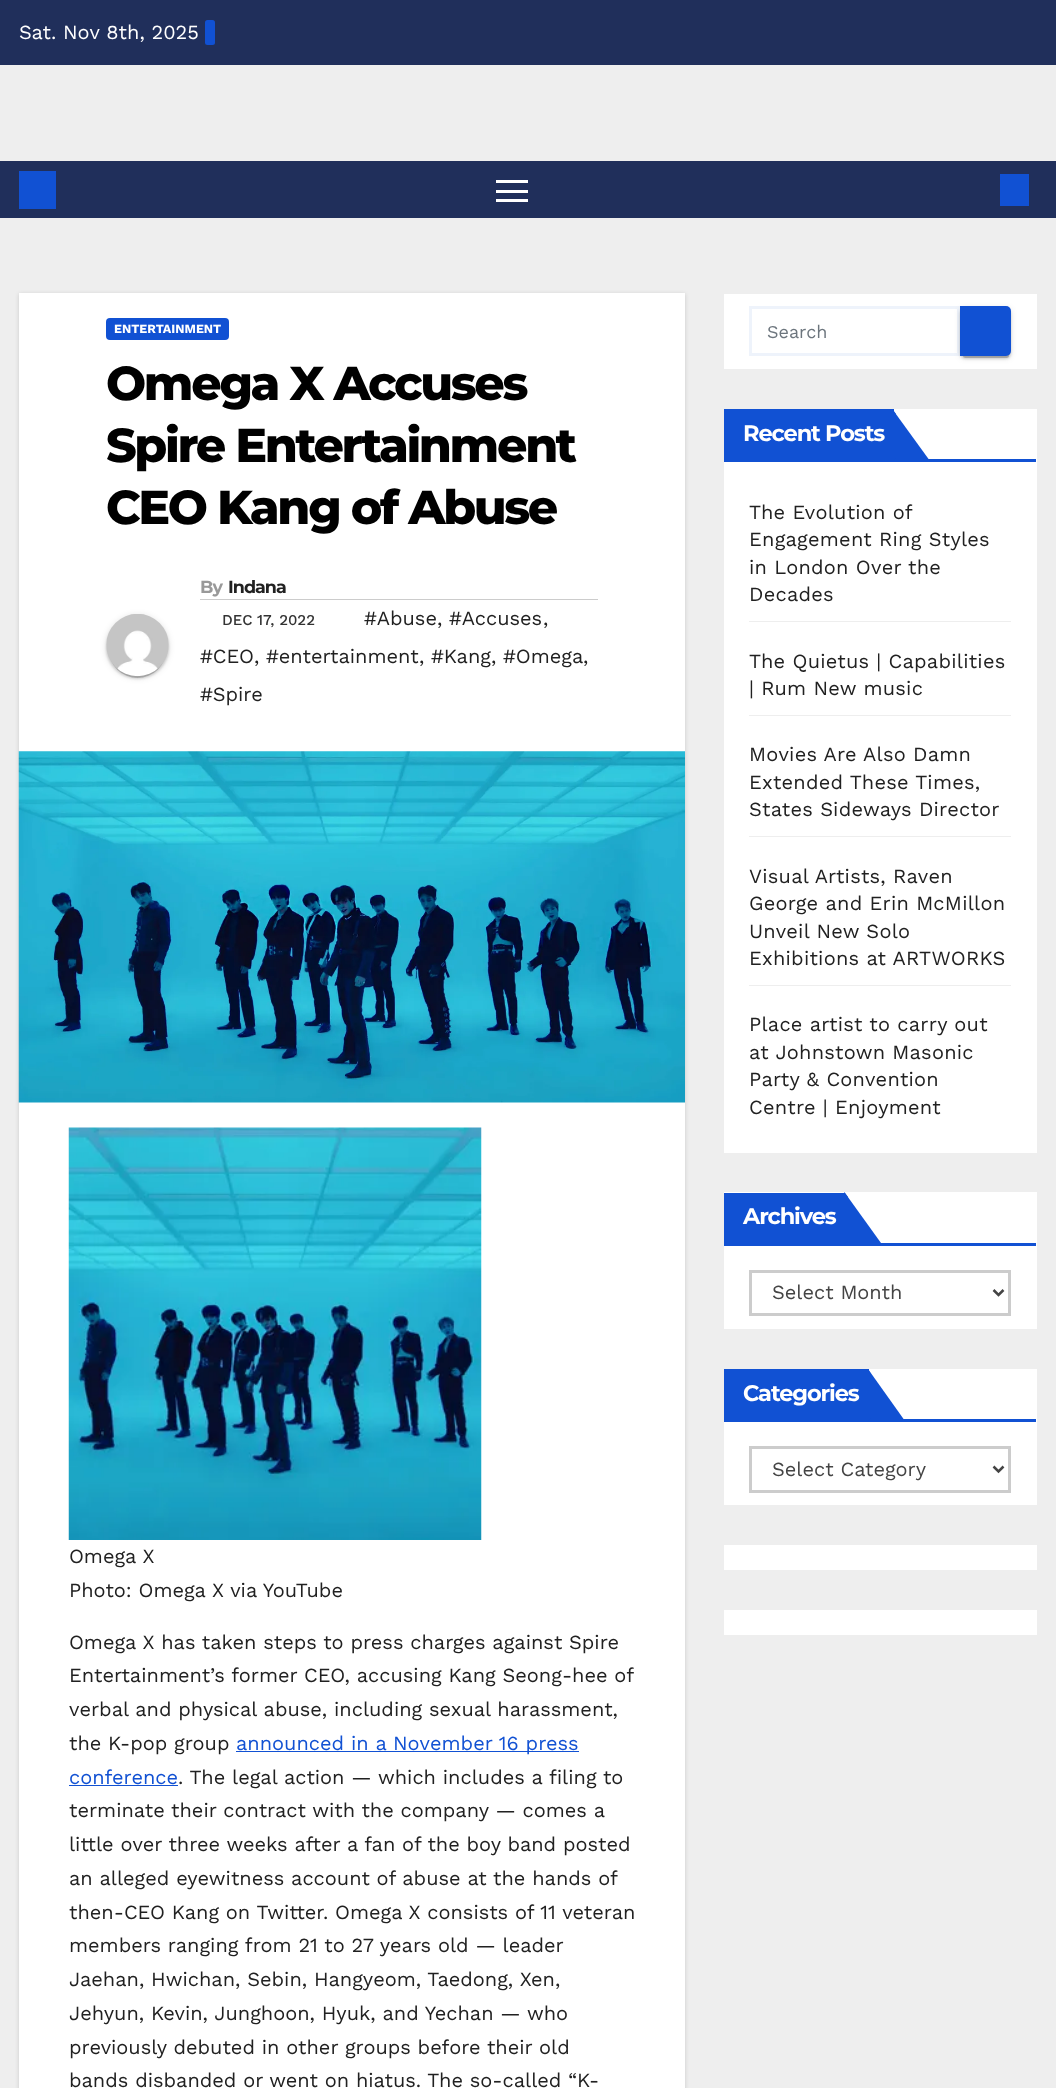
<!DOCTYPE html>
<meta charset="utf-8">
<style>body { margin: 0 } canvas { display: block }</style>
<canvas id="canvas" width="1056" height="2088"></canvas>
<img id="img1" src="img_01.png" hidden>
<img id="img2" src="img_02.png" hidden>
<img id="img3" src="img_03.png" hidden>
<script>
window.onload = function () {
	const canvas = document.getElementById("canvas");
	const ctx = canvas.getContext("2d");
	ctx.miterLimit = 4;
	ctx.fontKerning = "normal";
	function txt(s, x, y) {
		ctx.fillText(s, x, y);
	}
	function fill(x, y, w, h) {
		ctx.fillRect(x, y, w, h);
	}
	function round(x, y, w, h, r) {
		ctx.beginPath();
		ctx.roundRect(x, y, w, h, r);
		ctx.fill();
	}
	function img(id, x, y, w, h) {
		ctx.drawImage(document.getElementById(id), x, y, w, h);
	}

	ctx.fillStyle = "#EEEEEE";
	fill(0, 0, 1056, 2088);
	ctx.fillStyle = "#202F5B";
	fill(0, 0, 1056, 65);
	ctx.fillStyle = "#1151D3";
	round(205, 20, 10, 25, 2.5);
	ctx.fillStyle = "#202F5B";
	fill(0, 161, 1056, 57);
	ctx.fillStyle = "#1151D3";
	fill(19, 171, 37, 38);
	ctx.fillStyle = "#FFFFFF";
	fill(496, 180, 32, 3);
	fill(496, 190, 32, 3);
	fill(496, 199, 32, 3);
	ctx.fillStyle = "#1151D3";
	fill(1000, 174, 29, 32);
	ctx.fillStyle = "rgba(0, 0, 0, 0.15)";
	ctx.filter = "blur(2px)";
	ctx.beginPath();
	ctx.rect(19, 294, 666, 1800);
	ctx.fill();
	ctx.filter = "none";
	ctx.fillStyle = "#FFFFFF";
	fill(19, 293, 666, 1795);
	ctx.fillStyle = "#1151D3";
	round(106, 318, 123, 22, 4);
	ctx.fillStyle = "rgba(0, 0, 0, 0.12)";
	ctx.filter = "blur(3px)";
	ctx.beginPath();
	ctx.roundRect(106, 615, 63, 63, 31.5);
	ctx.fill();
	ctx.filter = "none";
	ctx.fillStyle = "rgba(0, 0, 0, 0.2)";
	ctx.filter = "blur(0.5px)";
	ctx.beginPath();
	ctx.roundRect(109, 620, 57, 58, 28.5);
	ctx.fill();
	ctx.filter = "none";
	ctx.fillStyle = "rgba(0, 0, 0, 0.14)";
	ctx.filter = "blur(1px)";
	ctx.beginPath();
	ctx.roundRect(106, 616, 63, 63, 31.5);
	ctx.fill();
	ctx.filter = "none";
	img("img1", 106, 614, 63, 63);
	ctx.fillStyle = "#CCCCCC";
	fill(200, 599, 398, 1);
	img("img2", 18, 751, 667, 352);
	img("img3", 68, 1127, 414, 413);
	ctx.fillStyle = "#1151D3";
	fill(236, 1751, 343, 1);
	fill(69, 1785, 109, 1);
	ctx.fillStyle = "#FFFFFF";
	fill(724, 294, 313, 75);
	ctx.strokeStyle = "#EEF3FB";
	ctx.lineWidth = 3;
	ctx.strokeRect(750.5, 307.5, 208, 47);
	ctx.fillStyle = "rgba(0, 0, 0, 0.12)";
	ctx.filter = "blur(3px)";
	ctx.beginPath();
	ctx.roundRect(960, 308, 51, 50, 5);
	ctx.fill();
	ctx.filter = "none";
	ctx.fillStyle = "rgba(0, 0, 0, 0.2)";
	ctx.filter = "blur(0.5px)";
	ctx.beginPath();
	ctx.roundRect(963, 313, 46, 45, 2.5);
	ctx.fill();
	ctx.filter = "none";
	ctx.fillStyle = "rgba(0, 0, 0, 0.14)";
	ctx.filter = "blur(1px)";
	ctx.beginPath();
	ctx.roundRect(960, 309, 51, 50, 5);
	ctx.fill();
	ctx.filter = "none";
	ctx.fillStyle = "#1151D3";
	ctx.beginPath();
	ctx.roundRect(960, 306, 51, 50, [0, 5, 5, 0]);
	ctx.fill();
	ctx.fillStyle = "#FFFFFF";
	fill(724, 409, 313, 744);
	ctx.fillStyle = "#1151D3";
	fill(724, 459, 312, 3);
	fill(724, 409, 170, 50);
	ctx.beginPath();
	ctx.moveTo(893, 410);
	ctx.lineTo(893, 461);
	ctx.lineTo(930, 461);
	ctx.closePath();
	ctx.fill();
	ctx.beginPath();
	ctx.moveTo(893, 410);
	ctx.lineTo(893, 409);
	ctx.lineTo(893, 461);
	ctx.lineTo(896, 458);
	ctx.lineTo(896, 414);
	ctx.closePath();
	ctx.fill();
	ctx.fillStyle = "#EEEEEE";
	fill(749, 621, 262, 1);
	fill(749, 715, 262, 1);
	fill(749, 836, 262, 1);
	fill(749, 985, 262, 1);
	ctx.fillStyle = "#FFFFFF";
	fill(724, 1192, 313, 137);
	ctx.fillStyle = "#1151D3";
	fill(724, 1243, 312, 3);
	fill(724, 1193, 120, 50);
	ctx.beginPath();
	ctx.moveTo(845, 1193);
	ctx.lineTo(844, 1193);
	ctx.lineTo(844, 1244);
	ctx.lineTo(881, 1244);
	ctx.lineTo(881, 1243);
	ctx.closePath();
	ctx.fill();
	ctx.beginPath();
	ctx.moveTo(845, 1193);
	ctx.lineTo(844, 1192);
	ctx.lineTo(844, 1244);
	ctx.lineTo(848, 1241);
	ctx.lineTo(848, 1197);
	ctx.closePath();
	ctx.fill();
	ctx.strokeStyle = "#CCCCCC";
	ctx.strokeRect(750.5, 1271.5, 259, 43);
	ctx.beginPath();
	ctx.moveTo(993.5, 1290);
	ctx.lineTo(998.5, 1295);
	ctx.lineTo(1003.5, 1290);
	ctx.strokeStyle = "#444444";
	ctx.lineWidth = 2.5;
	ctx.stroke();
	ctx.fillStyle = "#FFFFFF";
	fill(724, 1369, 313, 136);
	ctx.fillStyle = "#1151D3";
	fill(724, 1419, 312, 3);
	fill(724, 1369, 145, 50);
	ctx.beginPath();
	ctx.moveTo(868, 1369);
	ctx.lineTo(868, 1421);
	ctx.lineTo(905, 1421);
	ctx.closePath();
	ctx.fill();
	ctx.beginPath();
	ctx.moveTo(868, 1369);
	ctx.lineTo(868, 1421);
	ctx.lineTo(871, 1418);
	ctx.lineTo(871, 1374);
	ctx.closePath();
	ctx.fill();
	ctx.strokeStyle = "#CCCCCC";
	ctx.lineWidth = 3;
	ctx.strokeRect(750.5, 1447.5, 259, 44);
	ctx.beginPath();
	ctx.moveTo(993.5, 1466.5);
	ctx.lineTo(998.5, 1471.5);
	ctx.lineTo(1003.5, 1466.5);
	ctx.strokeStyle = "#444444";
	ctx.lineWidth = 2.5;
	ctx.stroke();
	ctx.fillStyle = "#FFFFFF";
	fill(724, 1545, 313, 25);
	fill(724, 1610, 313, 25);
	ctx.font = "20px Work Sans";
	txt("Sat. Nov 8th, 2025", 19, 39);
	ctx.font = "bold 12.5px Work Sans";
	txt("ENTERTAINMENT", 114, 333);
	ctx.letterSpacing = "-2.4px";
	ctx.font = "800 47.5px Montserrat";
	ctx.fillStyle = "#000000";
	txt("Omega X Accuses", 106, 400);
	txt("Spire Entertainment", 106, 462);
	txt("CEO Kang of Abuse", 106, 524);
	ctx.letterSpacing = "-1px";
	ctx.font = "bold 17.5px Montserrat";
	ctx.fillStyle = "#999999";
	txt("By", 200, 593);
	ctx.fillStyle = "#212121";
	txt("Indana", 228, 593);
	ctx.letterSpacing = "0px";
	ctx.font = "20px Work Sans";
	txt("#Abuse", 364, 625);
	txt(",", 437, 625);
	txt("#Accuses", 449, 625);
	txt(",", 543, 625);
	txt("#CEO", 200, 663);
	txt(",", 254, 663);
	txt("#entertainment", 266, 663);
	txt(",", 419, 663);
	txt("#Kang", 431, 663);
	txt(",", 491, 663);
	txt("#Omega", 503, 663);
	txt(",", 583, 663);
	txt("#Spire", 200, 701);
	ctx.font = "500 15px Work Sans";
	ctx.fillStyle = "#333333";
	txt("DEC 17, 2022", 222, 625);
	ctx.font = "20px Work Sans";
	ctx.fillStyle = "#212121";
	txt("Omega X", 69, 1563);
	txt("Photo: Omega X via YouTube", 69, 1597);
	txt("Omega X has taken steps to press charges against Spire", 69, 1649);
	txt("Entertainment’s former CEO, accusing Kang Seong-hee of", 69, 1682);
	txt("verbal and physical abuse, including sexual harassment,", 69, 1716);
	txt("the K-pop group", 69, 1750);
	ctx.fillStyle = "#1151D3";
	txt("announced in a November 16 press", 236, 1750);
	txt("conference", 69, 1784);
	ctx.fillStyle = "#212121";
	txt(". The legal action — which includes a filing to", 178, 1784);
	txt("terminate their contract with the company — comes a", 69, 1817);
	txt("little over three weeks after a fan of the boy band posted", 69, 1851);
	txt("an alleged eyewitness account of abuse at the hands of", 69, 1885);
	txt("then-CEO Kang on Twitter. Omega X consists of 11 veteran", 69, 1919);
	txt("members ranging from 21 to 27 years old — leader", 69, 1952);
	txt("Jaehan, Hwichan, Sebin, Hangyeom, Taedong, Xen,", 69, 1986);
	txt("Jehyun, Kevin, Junghoon, Hyuk, and Yechan — who", 69, 2020);
	txt("previously debuted in other groups before their old", 69, 2054);
	txt("bands disbanded or went on hiatus. The so-called “K-", 69, 2087);
	ctx.font = "18px Work Sans";
	ctx.fillStyle = "#6C757D";
	txt("Search", 767, 338);
	ctx.letterSpacing = "-1.1px";
	ctx.font = "bold 22.5px Montserrat";
	ctx.fillStyle = "#FFFFFF";
	txt("Recent Posts", 743, 441);
	ctx.letterSpacing = "0.25px";
	ctx.font = "20px Work Sans";
	ctx.fillStyle = "#212121";
	txt("The Evolution of", 749, 519);
	txt("Engagement Ring Styles", 749, 546);
	txt("in London Over the", 749, 574);
	txt("Decades", 749, 601);
	txt("The Quietus | Capabilities", 749, 668);
	txt("| Rum New music", 749, 695);
	txt("Movies Are Also Damn", 749, 761);
	txt("Extended These Times,", 749, 789);
	txt("States Sideways Director", 749, 816);
	txt("Visual Artists, Raven", 749, 883);
	txt("George and Erin McMillon", 749, 910);
	txt("Unveil New Solo", 749, 938);
	txt("Exhibitions at ARTWORKS", 749, 965);
	txt("Place artist to carry out", 749, 1031);
	txt("at Johnstown Masonic", 749, 1059);
	txt("Party & Convention", 749, 1086);
	txt("Centre | Enjoyment", 749, 1114);
	ctx.letterSpacing = "-1.1px";
	ctx.font = "bold 22.5px Montserrat";
	ctx.fillStyle = "#FFFFFF";
	txt("Archives", 743, 1224);
	ctx.letterSpacing = "0px";
	ctx.font = "20px Work Sans";
	ctx.fillStyle = "#444444";
	txt("Select Month", 772, 1299);
	ctx.letterSpacing = "-1.1px";
	ctx.font = "bold 22.5px Montserrat";
	ctx.fillStyle = "#FFFFFF";
	txt("Categories", 743, 1401);
	ctx.letterSpacing = "0px";
	ctx.font = "20px Work Sans";
	ctx.fillStyle = "#444444";
	txt("Select Category", 772, 1476);
};
</script>
